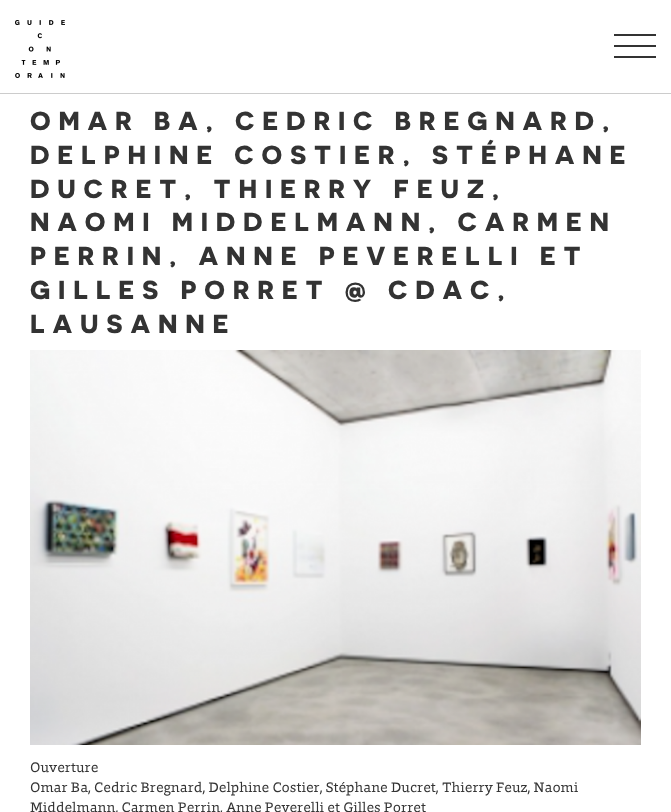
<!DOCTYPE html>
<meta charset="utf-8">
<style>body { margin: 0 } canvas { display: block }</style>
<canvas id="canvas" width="671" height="812"></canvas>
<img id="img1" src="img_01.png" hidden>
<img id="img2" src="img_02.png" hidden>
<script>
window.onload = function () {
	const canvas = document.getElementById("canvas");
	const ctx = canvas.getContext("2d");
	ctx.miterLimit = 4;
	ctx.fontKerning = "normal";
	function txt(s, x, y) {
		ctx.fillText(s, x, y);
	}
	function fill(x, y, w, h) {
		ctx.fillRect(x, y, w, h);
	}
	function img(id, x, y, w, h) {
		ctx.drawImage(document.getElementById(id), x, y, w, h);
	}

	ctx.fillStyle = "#FFFFFF";
	fill(0, 0, 671, 812);
	ctx.fillStyle = "#CCCCCC";
	fill(0, 93, 671, 1);
	img("img1", 15, 20, 50, 58);
	ctx.fillStyle = "#333333";
	fill(614, 34, 42, 2);
	fill(614, 45, 42, 2);
	fill(614, 56, 42, 2);
	img("img2", 30, 350, 611, 395);
	ctx.letterSpacing = "7.8px";
	ctx.font = "26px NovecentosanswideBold";
	txt("OMAR BA, CEDRIC BREGNARD,", 30, 130);
	txt("DELPHINE COSTIER, STÉPHANE", 30, 164);
	txt("DUCRET, THIERRY FEUZ,", 30, 198);
	txt("NAOMI MIDDELMANN, CARMEN", 30, 231);
	txt("PERRIN, ANNE PEVERELLI ET", 30, 265);
	txt("GILLES PORRET @ CDAC,", 30, 299);
	txt("LAUSANNE", 30, 333);
	ctx.letterSpacing = "0px";
	ctx.font = "14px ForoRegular";
	txt("Ouverture", 30, 772);
	txt("Omar Ba, Cedric Bregnard, Delphine Costier, Stéphane Ducret, Thierry Feuz, Naomi", 30, 792);
	txt("Middelmann, Carmen Perrin, Anne Peverelli et Gilles Porret", 30, 812);
};
</script>
